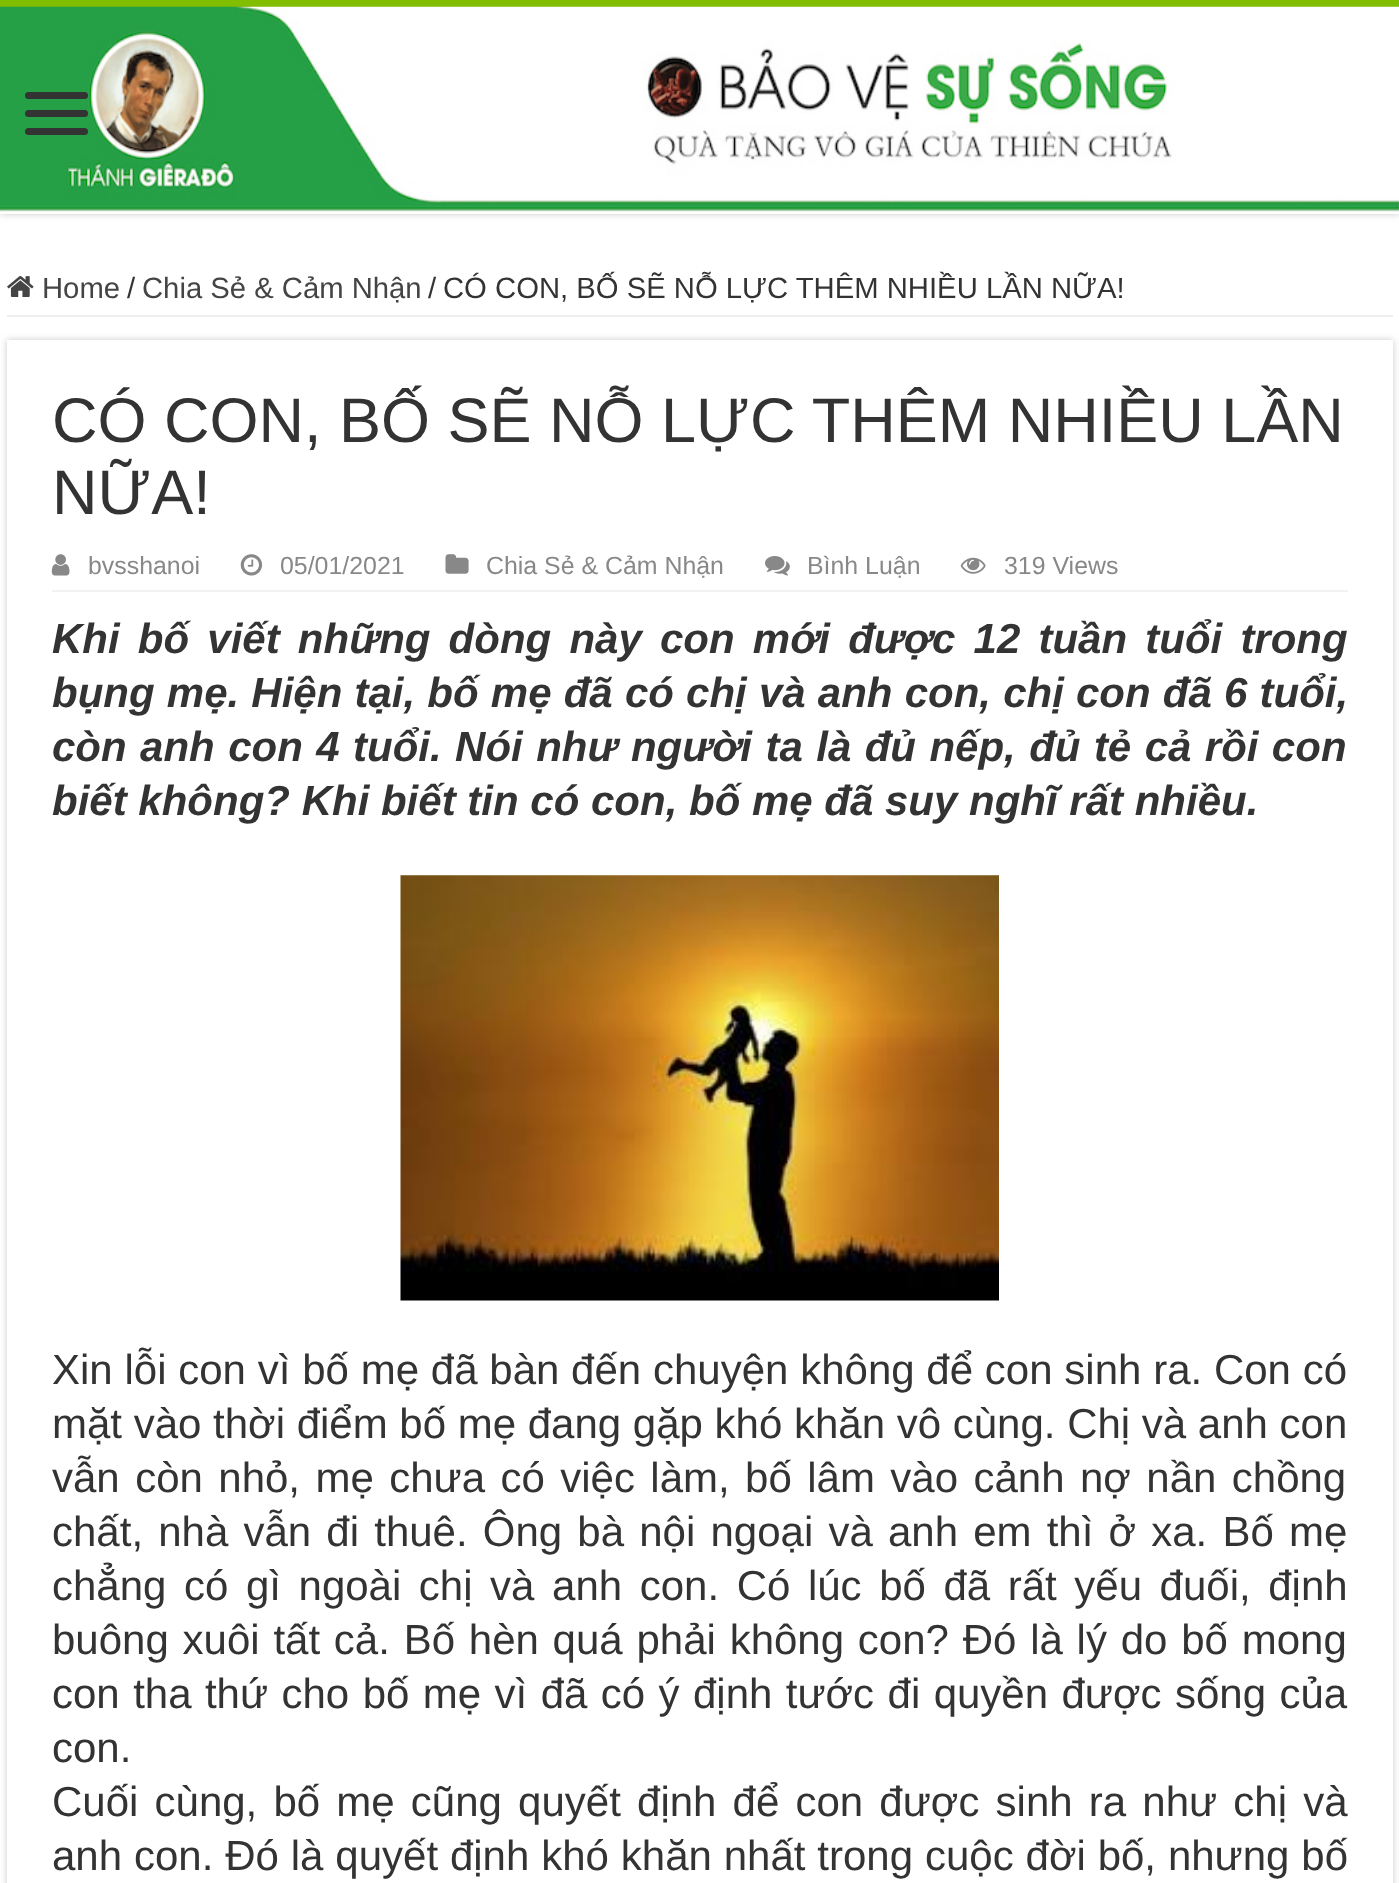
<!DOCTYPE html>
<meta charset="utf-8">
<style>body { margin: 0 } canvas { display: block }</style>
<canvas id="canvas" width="1399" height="1883"></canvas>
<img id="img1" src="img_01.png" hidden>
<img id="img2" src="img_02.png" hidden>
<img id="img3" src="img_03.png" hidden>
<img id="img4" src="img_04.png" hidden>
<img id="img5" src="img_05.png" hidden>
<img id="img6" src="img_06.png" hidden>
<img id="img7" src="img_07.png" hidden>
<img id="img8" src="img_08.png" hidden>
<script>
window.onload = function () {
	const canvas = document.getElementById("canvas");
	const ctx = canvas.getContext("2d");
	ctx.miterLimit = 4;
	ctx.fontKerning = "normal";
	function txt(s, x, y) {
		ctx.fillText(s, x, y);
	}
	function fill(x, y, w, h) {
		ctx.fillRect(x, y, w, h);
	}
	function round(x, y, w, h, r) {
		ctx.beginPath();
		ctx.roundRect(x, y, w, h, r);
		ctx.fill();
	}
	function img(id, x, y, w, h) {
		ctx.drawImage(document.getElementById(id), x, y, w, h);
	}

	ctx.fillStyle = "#FFFFFF";
	fill(0, 0, 1399, 1883);
	ctx.fillStyle = "#CACACA";
	ctx.filter = "blur(3.5px)";
	ctx.beginPath();
	ctx.rect(0, 0, 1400, 214);
	ctx.fill();
	ctx.filter = "none";
	ctx.fillStyle = "#FFFFFF";
	fill(0, 212, 1399, 2);
	ctx.fillStyle = "#81BD00";
	fill(0, 0, 1399, 7);
	img("img1", 0, 6, 1399, 206);
	ctx.fillStyle = "#333333";
	round(25, 92, 63, 7, 3.5);
	round(25, 110, 63, 7, 3.5);
	round(25, 128, 63, 7, 3.5);
	ctx.fillStyle = "#EEEEEE";
	fill(7, 315, 1386, 2);
	img("img2", 7, 276, 27, 21);
	ctx.fillStyle = "#CACACA";
	ctx.filter = "blur(3.5px)";
	ctx.beginPath();
	ctx.rect(7, 340, 1386, 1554);
	ctx.fill();
	ctx.filter = "none";
	ctx.fillStyle = "#FFFFFF";
	fill(7, 340, 1386, 1543);
	ctx.fillStyle = "#F2F2F2";
	fill(52, 590, 1296, 2);
	img("img3", 51, 554, 19, 22);
	img("img4", 240, 554, 23, 22);
	img("img5", 445, 554, 24, 20);
	img("img6", 765, 556, 25, 20);
	img("img7", 960, 557, 26, 17);
	img("img8", 400, 875, 599, 426);
	ctx.font = "29.25px Liberation Sans";
	ctx.fillStyle = "#444444";
	txt("Home", 42, 298);
	ctx.fillStyle = "#333333";
	txt("/", 127, 298);
	ctx.fillStyle = "#444444";
	txt("Chia Sẻ & Cảm Nhận", 142, 298);
	ctx.fillStyle = "#333333";
	txt("/", 428, 298);
	txt("CÓ CON, BỐ SẼ NỖ LỰC THÊM NHIỀU LẦN NỮA!", 443, 298);
	ctx.font = "63px Liberation Sans";
	txt("CÓ CON, BỐ SẼ NỖ LỰC THÊM NHIỀU LẦN", 52, 442);
	txt("NỮA!", 52, 514);
	ctx.font = "24.9px Liberation Sans";
	ctx.fillStyle = "#888888";
	txt("bvsshanoi", 88, 574);
	txt("05/01/2021", 280, 574);
	txt("Chia Sẻ & Cảm Nhận", 486, 574);
	txt("Bình Luận", 807, 574);
	txt("319 Views", 1004, 574);
	ctx.wordSpacing = "6.5px";
	ctx.font = "italic bold 42px Liberation Sans";
	ctx.fillStyle = "#333333";
	txt("Khi bố viết những dòng này con mới được 12 tuần tuổi trong", 52, 653);
	ctx.wordSpacing = "0.5px";
	txt("bụng mẹ. Hiện tại, bố mẹ đã có chị và anh con, chị con đã 6 tuổi,", 52, 707);
	ctx.wordSpacing = "1.75px";
	txt("còn anh con 4 tuổi. Nói như người ta là đủ nếp, đủ tẻ cả rồi con", 52, 761);
	ctx.wordSpacing = "0px";
	txt("biết không? Khi biết tin có con, bố mẹ đã suy nghĩ rất nhiều.", 52, 815);
	ctx.wordSpacing = "0.1px";
	ctx.font = "42px Liberation Sans";
	txt("Xin lỗi con vì bố mẹ đã bàn đến chuyện không để con sinh ra. Con có", 52, 1384);
	ctx.wordSpacing = "0px";
	txt("mặt vào thời điểm bố mẹ đang gặp khó khăn vô cùng. Chị và anh con", 52, 1438);
	ctx.wordSpacing = "3.75px";
	txt("vẫn còn nhỏ, mẹ chưa có việc làm, bố lâm vào cảnh nợ nần chồng", 52, 1492);
	ctx.wordSpacing = "3.5px";
	txt("chất, nhà vẫn đi thuê. Ông bà nội ngoại và anh em thì ở xa. Bố mẹ", 52, 1546);
	ctx.wordSpacing = "5.9px";
	txt("chẳng có gì ngoài chị và anh con. Có lúc bố đã rất yếu đuối, định", 52, 1600);
	ctx.wordSpacing = "2.1px";
	txt("buông xuôi tất cả. Bố hèn quá phải không con? Đó là lý do bố mong", 52, 1654);
	ctx.wordSpacing = "1.75px";
	txt("con tha thứ cho bố mẹ vì đã có ý định tước đi quyền được sống của", 52, 1708);
	ctx.wordSpacing = "0px";
	txt("con.", 52, 1762);
	ctx.wordSpacing = "4.5px";
	txt("Cuối cùng, bố mẹ cũng quyết định để con được sinh ra như chị và", 52, 1816);
	ctx.wordSpacing = "0.2px";
	txt("anh con. Đó là quyết định khó khăn nhất trong cuộc đời bố, nhưng bố", 52, 1870);
};
</script>
